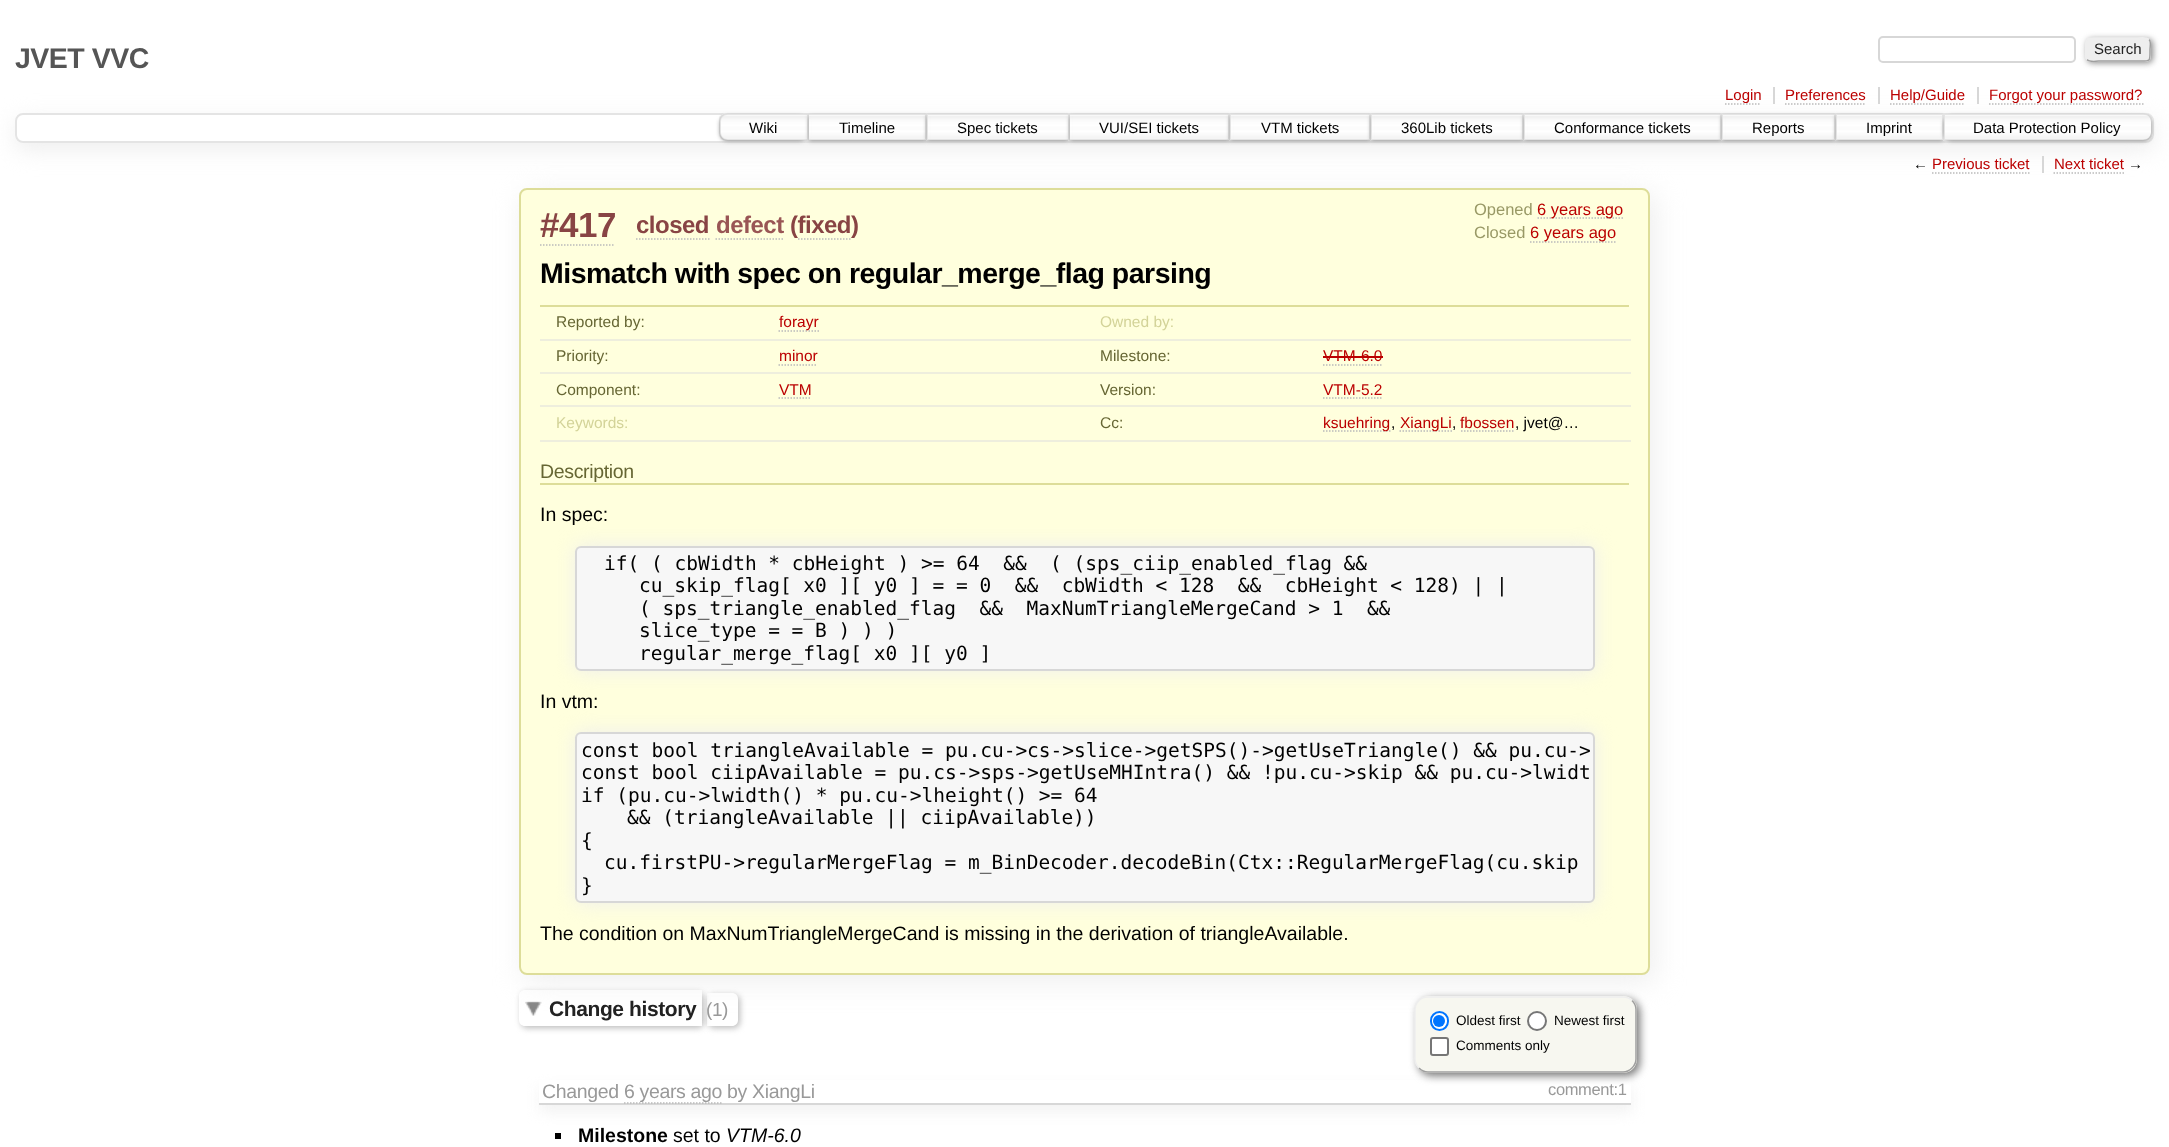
<!DOCTYPE html>
<meta charset="utf-8">
<style>body { margin: 0 } canvas { display: block }</style>
<canvas id="canvas" width="2169" height="1147"></canvas>
<img id="img1" src="img_01.png" hidden>
<img id="img2" src="img_02.png" hidden>
<img id="img3" src="img_03.png" hidden>
<img id="img4" src="img_04.png" hidden>
<img id="img5" src="img_05.png" hidden>
<img id="img6" src="img_06.png" hidden>
<img id="img7" src="img_07.png" hidden>
<img id="img8" src="img_08.png" hidden>
<img id="img9" src="img_09.png" hidden>
<img id="img10" src="img_10.png" hidden>
<img id="img11" src="img_11.png" hidden>
<script>
window.onload = function () {
	const canvas = document.getElementById("canvas");
	const ctx = canvas.getContext("2d");
	ctx.miterLimit = 4;
	ctx.fontKerning = "normal";
	function txt(s, x, y) {
		ctx.fillText(s, x, y);
	}
	function fill(x, y, w, h) {
		ctx.fillRect(x, y, w, h);
	}
	function round(x, y, w, h, r) {
		ctx.beginPath();
		ctx.roundRect(x, y, w, h, r);
		ctx.fill();
	}
	function img(id, x, y, w, h) {
		ctx.drawImage(document.getElementById(id), x, y, w, h);
	}

	ctx.fillStyle = "#FFFFFF";
	fill(0, 0, 2169, 1147);
	ctx.beginPath();
	ctx.roundRect(1879, 37, 196, 25, 4);
	ctx.strokeStyle = "#D7D7D7";
	ctx.lineWidth = 2;
	ctx.stroke();
	ctx.fillStyle = "#888888";
	ctx.filter = "blur(3px)";
	ctx.beginPath();
	ctx.roundRect(2087, 39, 66, 24, 5);
	ctx.fill();
	ctx.filter = "none";
	ctx.fillStyle = "#EEEEEE";
	round(2085, 38, 66, 24, 5);
	ctx.beginPath();
	ctx.moveTo(2149, 39.5);
	ctx.bezierCurveTo(2151.5, 41.5, 2150, 46.5, 2150, 49.5);
	ctx.bezierCurveTo(2150, 62.5, 2151, 61, 2137, 61);
	ctx.lineTo(2099, 61);
	ctx.bezierCurveTo(2098.5, 61, 2089.5, 62.5, 2087, 59.5);
	ctx.strokeStyle = "#9F9F9F";
	ctx.lineWidth = 1.5;
	ctx.stroke();
	ctx.beginPath();
	ctx.moveTo(2087, 59.5);
	ctx.bezierCurveTo(2084.5, 57.5, 2086, 52.5, 2086, 49.5);
	ctx.bezierCurveTo(2086, 36.5, 2085, 38, 2099, 38);
	ctx.lineTo(2137, 38);
	ctx.bezierCurveTo(2137.5, 38, 2146.5, 36.5, 2149, 39.5);
	ctx.strokeStyle = "#EEEEEE";
	ctx.stroke();
	ctx.save();
	ctx.beginPath();
	ctx.moveTo(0, 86);
	ctx.lineTo(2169, 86);
	ctx.lineTo(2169, 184);
	ctx.lineTo(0, 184);
	ctx.closePath();
	ctx.moveTo(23, 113);
	ctx.lineTo(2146, 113);
	ctx.bezierCurveTo(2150.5, 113, 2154, 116.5, 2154, 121);
	ctx.lineTo(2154, 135);
	ctx.bezierCurveTo(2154, 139.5, 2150.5, 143, 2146, 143);
	ctx.lineTo(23, 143);
	ctx.bezierCurveTo(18.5, 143, 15, 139.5, 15, 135);
	ctx.lineTo(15, 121);
	ctx.bezierCurveTo(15, 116.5, 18.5, 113, 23, 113);
	ctx.closePath();
	ctx.clip("evenodd");
	ctx.filter = "blur(11px)";
	ctx.beginPath();
	ctx.roundRect(15, 120, 2139, 30, 8);
	ctx.fill();
	ctx.filter = "none";
	ctx.restore();
	ctx.fillStyle = "#D7D7D7";
	fill(1773, 87, 2, 17);
	ctx.beginPath();
	ctx.moveTo(1725, 104);
	ctx.lineTo(1761, 104);
	ctx.strokeStyle = "#BBBBBB";
	ctx.setLineDash([1.5, 1.5]);
	ctx.stroke();
	fill(1878, 87, 2, 17);
	ctx.beginPath();
	ctx.moveTo(1785, 104);
	ctx.lineTo(1866, 104);
	ctx.stroke();
	fill(1977, 87, 2, 17);
	ctx.beginPath();
	ctx.moveTo(1890, 104);
	ctx.lineTo(1965, 104);
	ctx.stroke();
	ctx.beginPath();
	ctx.moveTo(1989, 104);
	ctx.lineTo(2143.5, 104);
	ctx.stroke();
	ctx.beginPath();
	ctx.roundRect(16, 114, 2137, 28, 7);
	ctx.strokeStyle = "#E4E4E4";
	ctx.lineWidth = 2;
	ctx.setLineDash([]);
	ctx.stroke();
	ctx.fillStyle = "#FFFFFF";
	ctx.beginPath();
	ctx.roundRect(719, 113, 90, 28, [8, 0, 0, 8]);
	ctx.fill();
	img("img1", 719, 115, 88, 26);
	ctx.beginPath();
	ctx.roundRect(720, 114, 88, 26, [7, 0, 0, 7]);
	ctx.stroke();
	ctx.save();
	ctx.beginPath();
	ctx.moveTo(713, 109);
	ctx.lineTo(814, 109);
	ctx.lineTo(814, 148);
	ctx.lineTo(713, 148);
	ctx.closePath();
	ctx.moveTo(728, 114);
	ctx.lineTo(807, 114);
	ctx.lineTo(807, 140);
	ctx.lineTo(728, 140);
	ctx.bezierCurveTo(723.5, 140, 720, 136.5, 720, 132);
	ctx.lineTo(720, 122);
	ctx.bezierCurveTo(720, 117.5, 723.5, 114, 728, 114);
	ctx.closePath();
	ctx.clip("evenodd");
	ctx.fillStyle = "#999999";
	ctx.filter = "blur(2px)";
	ctx.beginPath();
	ctx.roundRect(720, 116, 87, 25, 8);
	ctx.fill();
	ctx.filter = "none";
	ctx.restore();
	fill(809, 119, 2, 19);
	img("img2", 809, 115, 116, 24);
	ctx.strokeRect(808, 114, 118, 26);
	ctx.save();
	ctx.beginPath();
	ctx.moveTo(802, 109);
	ctx.lineTo(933, 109);
	ctx.lineTo(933, 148);
	ctx.lineTo(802, 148);
	ctx.closePath();
	ctx.moveTo(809, 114);
	ctx.lineTo(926, 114);
	ctx.lineTo(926, 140);
	ctx.lineTo(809, 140);
	ctx.closePath();
	ctx.clip("evenodd");
	ctx.fillStyle = "#999999";
	ctx.filter = "blur(2px)";
	ctx.beginPath();
	ctx.rect(809, 116, 117, 25);
	ctx.fill();
	ctx.filter = "none";
	ctx.restore();
	fill(928, 115, 2, 24);
	img("img3", 925, 115, 143, 24);
	ctx.strokeRect(927, 114, 142, 26);
	ctx.save();
	ctx.beginPath();
	ctx.moveTo(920, 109);
	ctx.lineTo(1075, 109);
	ctx.lineTo(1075, 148);
	ctx.lineTo(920, 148);
	ctx.closePath();
	ctx.moveTo(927, 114);
	ctx.lineTo(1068, 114);
	ctx.lineTo(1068, 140);
	ctx.lineTo(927, 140);
	ctx.closePath();
	ctx.clip("evenodd");
	ctx.fillStyle = "#999999";
	ctx.filter = "blur(2px)";
	ctx.beginPath();
	ctx.rect(927, 116, 141, 25);
	ctx.fill();
	ctx.filter = "none";
	ctx.restore();
	fill(1070, 115, 2, 24);
	img("img4", 1070, 115, 158, 24);
	ctx.strokeRect(1069, 114, 160, 26);
	ctx.save();
	ctx.beginPath();
	ctx.moveTo(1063, 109);
	ctx.lineTo(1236, 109);
	ctx.lineTo(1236, 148);
	ctx.lineTo(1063, 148);
	ctx.closePath();
	ctx.moveTo(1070, 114);
	ctx.lineTo(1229, 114);
	ctx.lineTo(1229, 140);
	ctx.lineTo(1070, 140);
	ctx.closePath();
	ctx.clip("evenodd");
	ctx.fillStyle = "#999999";
	ctx.filter = "blur(2px)";
	ctx.beginPath();
	ctx.rect(1070, 116, 159, 25);
	ctx.fill();
	ctx.filter = "none";
	ctx.restore();
	fill(1231, 115, 2, 24);
	img("img5", 1228, 115, 141, 24);
	ctx.strokeRect(1230, 114, 140, 26);
	ctx.save();
	ctx.beginPath();
	ctx.moveTo(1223, 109);
	ctx.lineTo(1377, 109);
	ctx.lineTo(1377, 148);
	ctx.lineTo(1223, 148);
	ctx.closePath();
	ctx.moveTo(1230, 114);
	ctx.lineTo(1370, 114);
	ctx.lineTo(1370, 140);
	ctx.lineTo(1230, 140);
	ctx.closePath();
	ctx.clip("evenodd");
	ctx.fillStyle = "#999999";
	ctx.filter = "blur(2px)";
	ctx.beginPath();
	ctx.rect(1230, 116, 140, 25);
	ctx.fill();
	ctx.filter = "none";
	ctx.restore();
	fill(1372, 115, 2, 24);
	img("img6", 1369, 115, 153, 24);
	ctx.strokeRect(1371, 114, 152, 26);
	ctx.save();
	ctx.beginPath();
	ctx.moveTo(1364, 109);
	ctx.lineTo(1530, 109);
	ctx.lineTo(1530, 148);
	ctx.lineTo(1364, 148);
	ctx.closePath();
	ctx.moveTo(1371, 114);
	ctx.lineTo(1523, 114);
	ctx.lineTo(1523, 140);
	ctx.lineTo(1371, 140);
	ctx.closePath();
	ctx.clip("evenodd");
	ctx.fillStyle = "#999999";
	ctx.filter = "blur(2px)";
	ctx.beginPath();
	ctx.rect(1371, 116, 152, 25);
	ctx.fill();
	ctx.filter = "none";
	ctx.restore();
	fill(1525, 115, 2, 24);
	img("img7", 1522, 115, 198, 24);
	ctx.strokeRect(1524, 114, 197, 26);
	ctx.save();
	ctx.beginPath();
	ctx.moveTo(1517, 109);
	ctx.lineTo(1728, 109);
	ctx.lineTo(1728, 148);
	ctx.lineTo(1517, 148);
	ctx.closePath();
	ctx.moveTo(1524, 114);
	ctx.lineTo(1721, 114);
	ctx.lineTo(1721, 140);
	ctx.lineTo(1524, 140);
	ctx.closePath();
	ctx.clip("evenodd");
	ctx.fillStyle = "#999999";
	ctx.filter = "blur(2px)";
	ctx.beginPath();
	ctx.rect(1524, 116, 197, 25);
	ctx.fill();
	ctx.filter = "none";
	ctx.restore();
	fill(1723, 115, 2, 24);
	img("img8", 1720, 115, 114, 24);
	ctx.strokeRect(1722, 114, 113, 26);
	ctx.save();
	ctx.beginPath();
	ctx.moveTo(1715, 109);
	ctx.lineTo(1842, 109);
	ctx.lineTo(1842, 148);
	ctx.lineTo(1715, 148);
	ctx.closePath();
	ctx.moveTo(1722, 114);
	ctx.lineTo(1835, 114);
	ctx.lineTo(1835, 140);
	ctx.lineTo(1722, 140);
	ctx.closePath();
	ctx.clip("evenodd");
	ctx.fillStyle = "#999999";
	ctx.filter = "blur(2px)";
	ctx.beginPath();
	ctx.rect(1722, 116, 113, 25);
	ctx.fill();
	ctx.filter = "none";
	ctx.restore();
	fill(1837, 115, 2, 24);
	img("img9", 1834, 115, 108, 24);
	ctx.strokeRect(1836, 114, 107, 26);
	ctx.save();
	ctx.beginPath();
	ctx.moveTo(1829, 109);
	ctx.lineTo(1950, 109);
	ctx.lineTo(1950, 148);
	ctx.lineTo(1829, 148);
	ctx.closePath();
	ctx.moveTo(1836, 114);
	ctx.lineTo(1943, 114);
	ctx.lineTo(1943, 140);
	ctx.lineTo(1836, 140);
	ctx.closePath();
	ctx.clip("evenodd");
	ctx.fillStyle = "#999999";
	ctx.filter = "blur(2px)";
	ctx.beginPath();
	ctx.rect(1836, 116, 107, 25);
	ctx.fill();
	ctx.filter = "none";
	ctx.restore();
	ctx.beginPath();
	ctx.roundRect(1943, 113, 210, 28, [0, 8, 8, 0]);
	ctx.fill();
	img("img10", 1945, 115, 207, 26);
	ctx.beginPath();
	ctx.roundRect(1944, 114, 208, 26, [0, 7, 7, 0]);
	ctx.stroke();
	ctx.save();
	ctx.beginPath();
	ctx.moveTo(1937, 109);
	ctx.lineTo(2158, 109);
	ctx.lineTo(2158, 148);
	ctx.lineTo(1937, 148);
	ctx.closePath();
	ctx.moveTo(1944, 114);
	ctx.lineTo(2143, 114);
	ctx.bezierCurveTo(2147.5, 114, 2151, 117.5, 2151, 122);
	ctx.lineTo(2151, 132);
	ctx.bezierCurveTo(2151, 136.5, 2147.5, 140, 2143, 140);
	ctx.lineTo(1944, 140);
	ctx.closePath();
	ctx.clip("evenodd");
	ctx.fillStyle = "#999999";
	ctx.filter = "blur(2px)";
	ctx.beginPath();
	ctx.roundRect(1944, 116, 207, 25, 8);
	ctx.fill();
	ctx.filter = "none";
	ctx.restore();
	ctx.fillStyle = "#D7D7D7";
	fill(2042, 156, 2, 17);
	ctx.beginPath();
	ctx.moveTo(1932, 173);
	ctx.lineTo(2029.5, 173);
	ctx.strokeStyle = "#BBBBBB";
	ctx.lineWidth = 1.5;
	ctx.setLineDash([1.5, 1.5]);
	ctx.stroke();
	ctx.beginPath();
	ctx.moveTo(2053.5, 173);
	ctx.lineTo(2124, 173);
	ctx.stroke();
	ctx.save();
	ctx.beginPath();
	ctx.moveTo(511, 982);
	ctx.lineTo(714, 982);
	ctx.lineTo(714, 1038);
	ctx.lineTo(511, 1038);
	ctx.closePath();
	ctx.moveTo(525, 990);
	ctx.lineTo(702, 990);
	ctx.lineTo(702, 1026);
	ctx.lineTo(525, 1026);
	ctx.bezierCurveTo(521.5, 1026, 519, 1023.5, 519, 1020);
	ctx.lineTo(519, 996);
	ctx.bezierCurveTo(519, 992.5, 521.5, 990, 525, 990);
	ctx.closePath();
	ctx.clip("evenodd");
	ctx.fillStyle = "#BBBBBB";
	ctx.filter = "blur(3px)";
	ctx.beginPath();
	ctx.roundRect(521, 992, 183, 36, 6);
	ctx.fill();
	ctx.filter = "none";
	ctx.restore();
	img("img11", 525, 1001, 17, 15);
	ctx.fillStyle = "#EEEEEE";
	ctx.filter = "blur(14.5px)";
	ctx.beginPath();
	ctx.roundRect(524, 194, 1131, 787, 8);
	ctx.fill();
	ctx.filter = "none";
	ctx.fillStyle = "#FFFFDD";
	ctx.beginPath();
	ctx.roundRect(520, 189, 1129, 785, 7);
	ctx.fill();
	ctx.strokeStyle = "#DDDD99";
	ctx.lineWidth = 2;
	ctx.setLineDash([]);
	ctx.stroke();
	ctx.beginPath();
	ctx.moveTo(540, 245);
	ctx.lineTo(615, 245);
	ctx.strokeStyle = "#BBBBBB";
	ctx.lineWidth = 1.5;
	ctx.setLineDash([1.5, 1.5]);
	ctx.stroke();
	ctx.beginPath();
	ctx.moveTo(636, 239);
	ctx.lineTo(709.5, 239);
	ctx.stroke();
	ctx.beginPath();
	ctx.moveTo(715.5, 239);
	ctx.lineTo(783, 239);
	ctx.stroke();
	ctx.beginPath();
	ctx.moveTo(798, 239);
	ctx.lineTo(852, 239);
	ctx.stroke();
	ctx.beginPath();
	ctx.moveTo(1537.5, 218);
	ctx.lineTo(1624.5, 218);
	ctx.stroke();
	ctx.beginPath();
	ctx.moveTo(1530, 242);
	ctx.lineTo(1617, 242);
	ctx.stroke();
	ctx.fillStyle = "#DDDD99";
	fill(540, 305, 1089, 2);
	ctx.fillStyle = "#EEEEDD";
	fill(540, 339, 1091, 2);
	ctx.beginPath();
	ctx.moveTo(778.5, 331);
	ctx.lineTo(819, 331);
	ctx.stroke();
	fill(540, 372, 1091, 2);
	ctx.beginPath();
	ctx.moveTo(778.5, 365);
	ctx.lineTo(817.5, 365);
	ctx.stroke();
	ctx.beginPath();
	ctx.moveTo(1323, 365);
	ctx.lineTo(1383, 365);
	ctx.stroke();
	ctx.fillStyle = "#BB0000";
	fill(1323, 356, 60, 2);
	ctx.fillStyle = "#EEEEDD";
	fill(540, 405, 1091, 2);
	ctx.beginPath();
	ctx.moveTo(778.5, 398);
	ctx.lineTo(811.5, 398);
	ctx.stroke();
	ctx.beginPath();
	ctx.moveTo(1323, 398);
	ctx.lineTo(1383, 398);
	ctx.stroke();
	fill(540, 440, 1091, 2);
	ctx.beginPath();
	ctx.moveTo(1323, 431);
	ctx.lineTo(1390.5, 431);
	ctx.stroke();
	ctx.beginPath();
	ctx.moveTo(1399.5, 431);
	ctx.lineTo(1452, 431);
	ctx.stroke();
	ctx.beginPath();
	ctx.moveTo(1461, 431);
	ctx.lineTo(1515, 431);
	ctx.stroke();
	ctx.fillStyle = "#DDDD99";
	fill(540, 483, 1089, 2);
	ctx.fillStyle = "#EEEEEE";
	ctx.filter = "blur(10px)";
	ctx.beginPath();
	ctx.roundRect(575, 546, 1020, 125, 6);
	ctx.fill();
	ctx.filter = "none";
	ctx.fillStyle = "#F7F7F7";
	ctx.beginPath();
	ctx.roundRect(576, 547, 1018, 123, 5);
	ctx.fill();
	ctx.strokeStyle = "#D7D7D7";
	ctx.lineWidth = 2;
	ctx.setLineDash([]);
	ctx.stroke();
	ctx.fillStyle = "#EEEEEE";
	ctx.filter = "blur(10px)";
	ctx.beginPath();
	ctx.roundRect(575, 732, 1020, 171, 6);
	ctx.fill();
	ctx.filter = "none";
	ctx.fillStyle = "#F7F7F7";
	ctx.beginPath();
	ctx.roundRect(576, 733, 1018, 169, 5);
	ctx.fill();
	ctx.stroke();
	ctx.save();
	ctx.beginPath();
	ctx.moveTo(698, 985);
	ctx.lineTo(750, 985);
	ctx.lineTo(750, 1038);
	ctx.lineTo(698, 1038);
	ctx.closePath();
	ctx.moveTo(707, 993);
	ctx.lineTo(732, 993);
	ctx.bezierCurveTo(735.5, 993, 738, 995.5, 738, 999);
	ctx.lineTo(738, 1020);
	ctx.bezierCurveTo(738, 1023.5, 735.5, 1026, 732, 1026);
	ctx.lineTo(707, 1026);
	ctx.closePath();
	ctx.clip("evenodd");
	ctx.fillStyle = "#BBBBBB";
	ctx.filter = "blur(3px)";
	ctx.beginPath();
	ctx.roundRect(708, 995, 32, 33, 6);
	ctx.fill();
	ctx.filter = "none";
	ctx.restore();
	ctx.fillStyle = "#777777";
	ctx.filter = "blur(4.5px)";
	ctx.beginPath();
	ctx.roundRect(1418, 999, 222, 77, 14);
	ctx.fill();
	ctx.filter = "none";
	ctx.save();
	ctx.beginPath();
	ctx.moveTo(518, 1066);
	ctx.lineTo(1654, 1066);
	ctx.lineTo(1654, 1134);
	ctx.lineTo(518, 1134);
	ctx.closePath();
	ctx.moveTo(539, 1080);
	ctx.lineTo(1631, 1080);
	ctx.lineTo(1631, 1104);
	ctx.lineTo(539, 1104);
	ctx.closePath();
	ctx.clip("evenodd");
	ctx.fillStyle = "#F2F2F2";
	ctx.filter = "blur(7px)";
	ctx.beginPath();
	ctx.rect(540, 1088, 1092, 24);
	ctx.fill();
	ctx.filter = "none";
	ctx.restore();
	ctx.fillStyle = "#F7F7F0";
	round(1415, 996, 222, 77, 14);
	ctx.beginPath();
	ctx.moveTo(1632, 1000.5);
	ctx.bezierCurveTo(1634.5, 1003, 1636, 1006, 1636, 1009.5);
	ctx.lineTo(1636, 1059);
	ctx.bezierCurveTo(1636, 1062.5, 1634.5, 1065.5, 1632, 1068);
	ctx.bezierCurveTo(1629.5, 1070.5, 1626.5, 1072, 1623, 1072);
	ctx.lineTo(1428, 1072);
	ctx.bezierCurveTo(1424.5, 1072, 1421.5, 1070.5, 1419, 1068);
	ctx.strokeStyle = "#9F9F9F";
	ctx.lineWidth = 1.5;
	ctx.stroke();
	ctx.beginPath();
	ctx.moveTo(1419, 1068);
	ctx.bezierCurveTo(1416.5, 1065.5, 1415, 1062.5, 1415, 1059);
	ctx.lineTo(1415, 1009.5);
	ctx.bezierCurveTo(1415, 1006, 1416.5, 1003, 1419, 1000.5);
	ctx.bezierCurveTo(1421.5, 998, 1424.5, 997, 1428, 997);
	ctx.lineTo(1623, 997);
	ctx.bezierCurveTo(1626.5, 997, 1629.5, 998, 1632, 1000.5);
	ctx.strokeStyle = "#EEEEEE";
	ctx.stroke();
	ctx.fillStyle = "#FFFFFF";
	ctx.beginPath();
	ctx.roundRect(1431, 1012, 17, 18, 8.5);
	ctx.fill();
	ctx.strokeStyle = "#0075FF";
	ctx.lineWidth = 2;
	ctx.stroke();
	ctx.fillStyle = "#0075FF";
	ctx.beginPath();
	ctx.arc(1439, 1021, 6, 0, Math.PI * 2);
	ctx.fill();
	ctx.fillStyle = "#FFFFFF";
	ctx.beginPath();
	ctx.arc(1537, 1021, 9, 0, Math.PI * 2);
	ctx.fill();
	ctx.strokeStyle = "#767676";
	ctx.stroke();
	ctx.beginPath();
	ctx.roundRect(1431, 1038, 17, 17, 2);
	ctx.fill();
	ctx.stroke();
	ctx.fillStyle = "#D7D7D7";
	fill(539, 1103, 1092, 2);
	ctx.beginPath();
	ctx.moveTo(624, 1103);
	ctx.lineTo(721.5, 1103);
	ctx.strokeStyle = "#BBBBBB";
	ctx.lineWidth = 1.5;
	ctx.setLineDash([1.5, 1.5]);
	ctx.stroke();
	ctx.fillStyle = "#000000";
	fill(555, 1133, 6, 6);
	ctx.letterSpacing = "-0.5px";
	ctx.font = "bold 28.5px Liberation Sans";
	ctx.fillStyle = "#555555";
	txt("JVET VVC", 15, 68);
	ctx.letterSpacing = "0px";
	ctx.font = "15px Liberation Sans";
	ctx.fillStyle = "#222222";
	txt("Search", 2094, 54);
	ctx.fillStyle = "#BB0000";
	txt("Login", 1725, 100);
	txt("Preferences", 1785, 100);
	txt("Help/Guide", 1890, 100);
	txt("Forgot your password?", 1989, 100);
	ctx.fillStyle = "#000000";
	txt("Wiki", 749, 133);
	txt("Timeline", 839, 133);
	txt("Spec tickets", 957, 133);
	txt("VUI/SEI tickets", 1099, 133);
	txt("VTM tickets", 1261, 133);
	txt("360Lib tickets", 1401, 133);
	txt("Conformance tickets", 1554, 133);
	txt("Reports", 1752, 133);
	txt("Imprint", 1866, 133);
	txt("Data Protection Policy", 1973, 133);
	txt("←", 1913, 169);
	ctx.fillStyle = "#BB0000";
	txt("Previous ticket", 1932, 169);
	txt("Next ticket", 2054, 169);
	ctx.fillStyle = "#000000";
	txt("→", 2128, 169);
	ctx.letterSpacing = "-0.5px";
	ctx.font = "bold 35px Liberation Sans";
	ctx.fillStyle = "#884444";
	txt("#417", 540, 237);
	ctx.font = "bold 24px Liberation Sans";
	txt("closed", 636, 233);
	ctx.fillStyle = "#995555";
	txt("defect", 716, 233);
	ctx.fillStyle = "#884444";
	txt("(fixed)", 790, 233);
	ctx.letterSpacing = "0px";
	ctx.font = "16.5px Liberation Sans";
	ctx.fillStyle = "#999966";
	txt("Opened", 1474, 215);
	ctx.fillStyle = "#BB0000";
	txt("6 years ago", 1537, 215);
	ctx.fillStyle = "#999966";
	txt("Closed", 1474, 238);
	ctx.fillStyle = "#BB0000";
	txt("6 years ago", 1530, 238);
	ctx.letterSpacing = "-0.5px";
	ctx.font = "bold 28.5px Liberation Sans";
	ctx.fillStyle = "#000000";
	txt("Mismatch with spec on regular_merge_flag parsing", 540, 283);
	ctx.letterSpacing = "0px";
	ctx.font = "15.5px Liberation Sans";
	ctx.fillStyle = "#666633";
	txt("Reported by:", 556, 327);
	ctx.fillStyle = "#BB0000";
	txt("forayr", 779, 327);
	ctx.fillStyle = "#D3D398";
	txt("Owned by:", 1100, 327);
	ctx.fillStyle = "#666633";
	txt("Priority:", 556, 361);
	ctx.fillStyle = "#BB0000";
	txt("minor", 779, 361);
	ctx.fillStyle = "#666633";
	txt("Milestone:", 1100, 361);
	ctx.fillStyle = "#BB0000";
	txt("VTM-6.0", 1323, 361);
	ctx.fillStyle = "#666633";
	txt("Component:", 556, 395);
	ctx.fillStyle = "#BB0000";
	txt("VTM", 779, 395);
	ctx.fillStyle = "#666633";
	txt("Version:", 1100, 395);
	ctx.fillStyle = "#BB0000";
	txt("VTM-5.2", 1323, 395);
	ctx.fillStyle = "#D3D398";
	txt("Keywords:", 556, 428);
	ctx.fillStyle = "#666633";
	txt("Cc:", 1100, 428);
	ctx.fillStyle = "#BB0000";
	txt("ksuehring", 1323, 428);
	ctx.fillStyle = "#000000";
	txt(",", 1391, 428);
	ctx.fillStyle = "#BB0000";
	txt("XiangLi", 1400, 428);
	ctx.fillStyle = "#000000";
	txt(",", 1452, 428);
	ctx.fillStyle = "#BB0000";
	txt("fbossen", 1460, 428);
	ctx.fillStyle = "#000000";
	txt(", jvet@…", 1515, 428);
	ctx.letterSpacing = "-0.35px";
	ctx.font = "19.5px Liberation Sans";
	ctx.fillStyle = "#666633";
	txt("Description", 540, 478);
	ctx.letterSpacing = "0px";
	ctx.fillStyle = "#000000";
	txt("In spec:", 540, 521);
	ctx.font = "19.5px DejaVu Sans Mono";
	txt("if( ( cbWidth * cbHeight ) >= 64  &&  ( (sps_ciip_enabled_flag &&", 604, 570);
	txt("cu_skip_flag[ x0 ][ y0 ] = = 0  &&  cbWidth < 128  &&  cbHeight < 128) | |", 639, 592);
	txt("( sps_triangle_enabled_flag  &&  MaxNumTriangleMergeCand > 1  &&", 639, 615);
	txt("slice_type = = B ) ) )", 639, 637);
	txt("regular_merge_flag[ x0 ][ y0 ]", 639, 660);
	ctx.font = "19.5px Liberation Sans";
	txt("In vtm:", 540, 708);
	ctx.font = "19.5px DejaVu Sans Mono";
	txt("const bool triangleAvailable = pu.cu->cs->slice->getSPS()->getUseTriangle() && pu.cu->", 581, 757);
	txt("const bool ciipAvailable = pu.cs->sps->getUseMHIntra() && !pu.cu->skip && pu.cu->lwidt", 581, 779);
	txt("if (pu.cu->lwidth() * pu.cu->lheight() >= 64", 581, 802);
	txt("&& (triangleAvailable || ciipAvailable))", 627, 824);
	txt("{", 581, 847);
	txt("cu.firstPU->regularMergeFlag = m_BinDecoder.decodeBin(Ctx::RegularMergeFlag(cu.skip", 604, 869);
	txt("}", 581, 892);
	ctx.font = "19.5px Liberation Sans";
	txt("The condition on MaxNumTriangleMergeCand is missing in the derivation of triangleAvailable.", 540, 940);
	ctx.letterSpacing = "-0.4px";
	ctx.font = "bold 21px Liberation Sans";
	ctx.fillStyle = "#222222";
	txt("Change history", 549, 1016);
	ctx.font = "19px Liberation Sans";
	ctx.fillStyle = "#999999";
	txt("(1)", 706, 1016);
	ctx.letterSpacing = "0px";
	ctx.font = "13.5px Liberation Sans";
	ctx.fillStyle = "#000000";
	txt("Oldest first", 1456, 1025);
	txt("Newest first", 1554, 1025);
	txt("Comments only", 1456, 1050);
	ctx.letterSpacing = "-0.35px";
	ctx.font = "19.5px Liberation Sans";
	ctx.fillStyle = "#999999";
	txt("Changed", 542, 1098);
	txt("6 years ago by XiangLi", 624, 1098);
	ctx.font = "16.5px Liberation Sans";
	txt("comment:1", 1548, 1095);
	ctx.letterSpacing = "0px";
	ctx.font = "bold 19.5px Liberation Sans";
	ctx.fillStyle = "#000000";
	txt("Milestone", 578, 1142);
	ctx.font = "19.5px Liberation Sans";
	txt("set to", 673, 1142);
	ctx.font = "italic 19.5px Liberation Sans";
	txt("VTM-6.0", 726, 1142);
};
</script>
